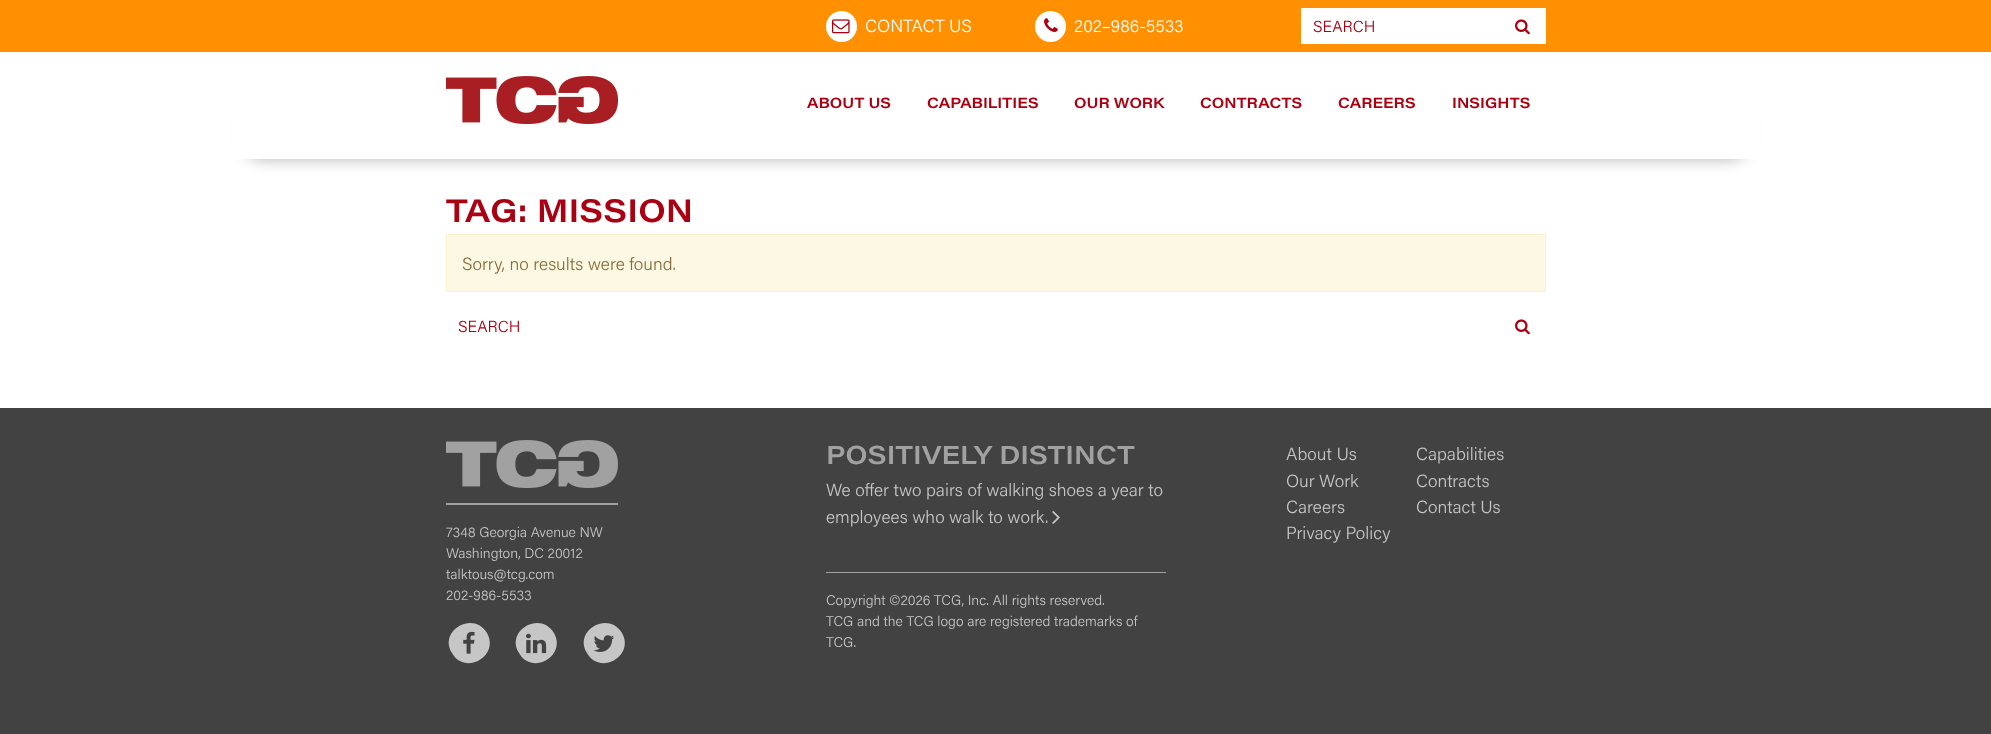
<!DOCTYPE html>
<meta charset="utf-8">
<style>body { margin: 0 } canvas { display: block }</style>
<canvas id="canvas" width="1991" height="734"></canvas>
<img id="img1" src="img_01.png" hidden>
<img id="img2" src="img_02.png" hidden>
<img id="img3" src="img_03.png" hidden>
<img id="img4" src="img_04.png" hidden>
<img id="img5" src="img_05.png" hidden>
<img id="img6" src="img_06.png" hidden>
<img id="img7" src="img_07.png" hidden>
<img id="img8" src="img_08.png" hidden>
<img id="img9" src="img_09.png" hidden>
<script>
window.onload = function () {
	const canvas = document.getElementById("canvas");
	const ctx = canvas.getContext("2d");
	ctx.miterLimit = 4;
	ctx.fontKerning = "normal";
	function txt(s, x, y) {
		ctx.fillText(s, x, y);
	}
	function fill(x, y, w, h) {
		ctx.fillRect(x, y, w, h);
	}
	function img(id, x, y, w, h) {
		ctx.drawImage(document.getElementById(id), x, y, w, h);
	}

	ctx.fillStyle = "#FFFFFF";
	fill(0, 0, 1991, 734);
	ctx.fillStyle = "#FF9001";
	fill(0, 0, 1991, 52);
	ctx.fillStyle = "#FFFFFF";
	ctx.beginPath();
	ctx.arc(841.5, 26.5, 15.5, 0, Math.PI * 2);
	ctx.fill();
	img("img1", 832, 19, 18, 15);
	ctx.beginPath();
	ctx.arc(1050.5, 26.5, 15.5, 0, Math.PI * 2);
	ctx.fill();
	img("img2", 1044, 18, 14, 14);
	fill(1301, 8, 245, 36);
	img("img3", 1515, 19, 15, 16);
	ctx.fillStyle = "rgba(0, 0, 0, 0.3)";
	ctx.filter = "blur(7.5px)";
	ctx.beginPath();
	ctx.roundRect(246, 105, 1500, 54, 15);
	ctx.fill();
	ctx.filter = "none";
	ctx.fillStyle = "#FFFFFF";
	fill(232, 91, 1528, 68);
	img("img4", 446, 76, 172, 48);
	ctx.fillStyle = "#FCF8E3";
	ctx.beginPath();
	ctx.rect(446.5, 234.5, 1099, 57);
	ctx.fill();
	ctx.strokeStyle = "#FAF2CC";
	ctx.stroke();
	img("img3", 1515, 319, 15, 16);
	ctx.fillStyle = "#424242";
	fill(0, 408, 1991, 326);
	img("img5", 1052, 511, 8, 13);
	ctx.fillStyle = "#A1A1A1";
	fill(826, 572, 340, 1);
	fill(446, 503, 172, 2);
	img("img6", 446, 440, 172, 48);
	ctx.fillStyle = "#C6C6C6";
	ctx.beginPath();
	ctx.moveTo(487, 633);
	ctx.bezierCurveTo(500, 656, 465, 676, 452, 653);
	ctx.bezierCurveTo(438, 631, 473, 610, 487, 633);
	ctx.closePath();
	ctx.fill();
	img("img7", 463, 631, 12, 23);
	ctx.beginPath();
	ctx.moveTo(554, 633);
	ctx.bezierCurveTo(567, 656, 532, 676, 519, 653);
	ctx.bezierCurveTo(505, 631, 540, 610, 554, 633);
	ctx.closePath();
	ctx.fill();
	img("img8", 526, 633, 21, 21);
	ctx.beginPath();
	ctx.moveTo(622, 633);
	ctx.bezierCurveTo(635, 656, 600, 676, 587, 653);
	ctx.bezierCurveTo(573, 631, 608, 610, 622, 633);
	ctx.closePath();
	ctx.fill();
	img("img9", 593, 635, 21, 17);
	ctx.font = "300 17.6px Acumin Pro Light";
	ctx.fillStyle = "#FFFFFF";
	txt("CONTACT US", 865, 32);
	txt("202–986-5533", 1074, 32);
	ctx.font = "300 16px Acumin Pro Light";
	ctx.fillStyle = "#A90112";
	txt("SEARCH", 1313, 32);
	ctx.font = "600 14.5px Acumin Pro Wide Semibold";
	txt("ABOUT US", 807, 108);
	txt("CAPABILITIES", 927, 108);
	txt("OUR WORK", 1074, 108);
	txt("CONTRACTS", 1200, 108);
	txt("CAREERS", 1338, 108);
	txt("INSIGHTS", 1452, 108);
	ctx.font = "600 32px Acumin Pro Wide Semibold";
	txt("TAG: MISSION", 446, 222);
	ctx.font = "300 17.6px Acumin Pro Light";
	ctx.fillStyle = "#8A6D3B";
	txt("Sorry, no results were found.", 462, 270);
	ctx.font = "300 16px Acumin Pro Light";
	ctx.fillStyle = "#A90112";
	txt("SEARCH", 458, 332);
	ctx.font = "600 25.6px Acumin Pro Wide Semibold";
	ctx.fillStyle = "#A1A1A1";
	txt("POSITIVELY DISTINCT", 826, 464);
	ctx.font = "300 17.6px Acumin Pro Light";
	ctx.fillStyle = "#C6C6C6";
	txt("We offer two pairs of walking shoes a year to", 826, 496);
	txt("employees who walk to work.", 826, 523);
	ctx.font = "300 14.1px Acumin Pro Light";
	txt("Copyright ©2026 TCG, Inc. All rights reserved.", 826, 605);
	txt("TCG and the TCG logo are registered trademarks of", 826, 626);
	txt("TCG.", 826, 647);
	ctx.font = "300 17.6px Acumin Pro Light";
	txt("About Us", 1286, 460);
	txt("Capabilities", 1416, 460);
	txt("Our Work", 1286, 487);
	txt("Contracts", 1416, 487);
	txt("Careers", 1286, 513);
	txt("Contact Us", 1416, 513);
	txt("Privacy Policy", 1286, 539);
	ctx.font = "300 14.1px Acumin Pro Light";
	txt("7348 Georgia Avenue NW", 446, 537);
	txt("Washington, DC 20012", 446, 558);
	txt("talktous@tcg.com", 446, 579);
	txt("202-986-5533", 446, 600);
};
</script>
